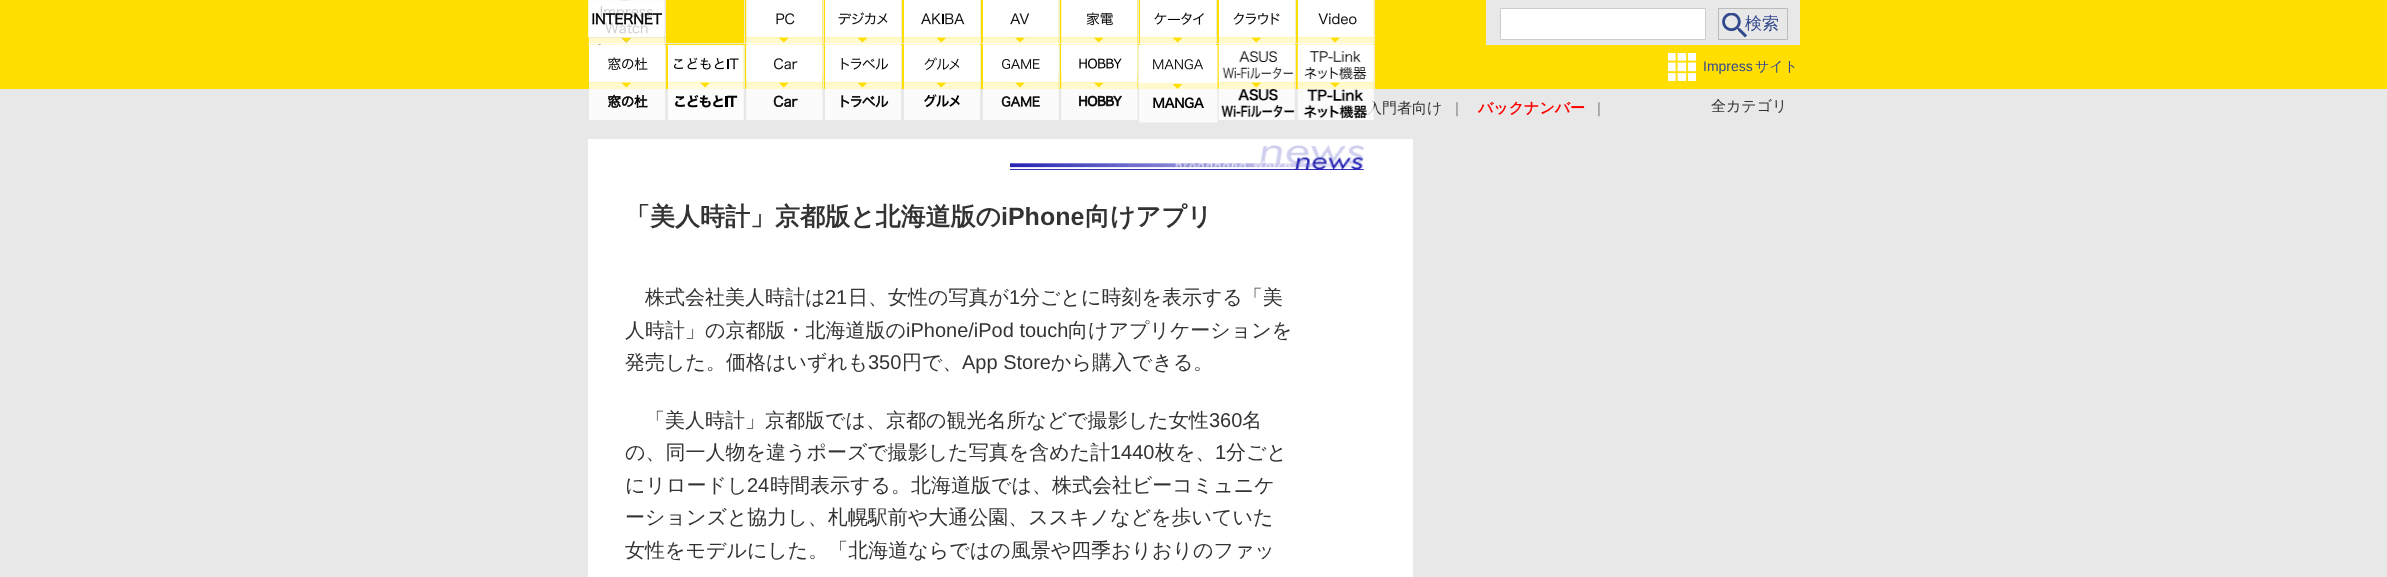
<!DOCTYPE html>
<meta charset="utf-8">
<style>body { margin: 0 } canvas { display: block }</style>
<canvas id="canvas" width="2387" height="577"></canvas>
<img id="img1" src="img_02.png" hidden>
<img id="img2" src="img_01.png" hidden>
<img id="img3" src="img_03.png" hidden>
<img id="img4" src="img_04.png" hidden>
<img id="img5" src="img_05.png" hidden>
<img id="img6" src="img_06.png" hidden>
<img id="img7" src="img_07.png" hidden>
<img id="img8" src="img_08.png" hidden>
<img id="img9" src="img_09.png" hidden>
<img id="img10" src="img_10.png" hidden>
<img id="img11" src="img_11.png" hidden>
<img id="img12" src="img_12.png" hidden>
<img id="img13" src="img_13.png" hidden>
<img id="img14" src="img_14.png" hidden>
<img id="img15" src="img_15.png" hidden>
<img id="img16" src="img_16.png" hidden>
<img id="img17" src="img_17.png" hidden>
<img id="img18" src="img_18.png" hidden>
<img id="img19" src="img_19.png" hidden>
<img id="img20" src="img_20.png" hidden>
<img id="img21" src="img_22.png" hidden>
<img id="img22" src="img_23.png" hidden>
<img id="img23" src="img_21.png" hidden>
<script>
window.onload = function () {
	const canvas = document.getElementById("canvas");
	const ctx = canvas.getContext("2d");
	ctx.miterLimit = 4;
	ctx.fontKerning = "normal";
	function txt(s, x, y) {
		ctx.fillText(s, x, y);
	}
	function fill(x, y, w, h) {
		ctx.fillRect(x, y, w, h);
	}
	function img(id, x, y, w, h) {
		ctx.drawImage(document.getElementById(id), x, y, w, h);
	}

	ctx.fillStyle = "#E8E8E8";
	fill(0, 0, 2387, 577);
	ctx.fillStyle = "#FFDE00";
	fill(0, 0, 2387, 89);
	ctx.fillStyle = "#F0EBCF";
	fill(588, 43, 787, 1);
	fill(744, 0, 1, 44);
	img("img1", 589, 0, 76, 45);
	img("img2", 588, 0, 76, 38);
	fill(665, 0, 1, 44);
	fill(823, 0, 1, 44);
	img("img3", 746, 0, 77, 75);
	fill(901, 0, 1, 44);
	img("img4", 825, 0, 76, 45);
	fill(980, 0, 1, 44);
	img("img5", 904, 0, 76, 45);
	fill(1059, 0, 1, 44);
	img("img6", 983, 0, 76, 75);
	fill(1138, 0, 1, 44);
	img("img7", 1061, 0, 77, 75);
	fill(1216, 0, 1, 44);
	img("img8", 1140, 0, 76, 46);
	fill(1295, 0, 1, 44);
	img("img9", 1219, 0, 76, 75);
	fill(1374, 0, 1, 44);
	img("img10", 1298, 0, 76, 75);
	ctx.fillStyle = "#E8E8E8";
	fill(1486, 0, 314, 45);
	ctx.fillStyle = "#FFFFFF";
	ctx.beginPath();
	ctx.rect(1500.5, 8.5, 205, 31);
	ctx.fill();
	ctx.strokeStyle = "#CCCCCC";
	ctx.stroke();
	img("img11", 1722, 13, 25, 25);
	ctx.strokeStyle = "#BBBBBB";
	ctx.strokeRect(1718.5, 8.5, 69, 31);
	ctx.fillStyle = "#F0EBCF";
	fill(665, 45, 1, 44);
	img("img12", 589, 45, 76, 75);
	fill(744, 45, 1, 44);
	img("img13", 668, 45, 76, 75);
	fill(823, 45, 1, 44);
	img("img14", 746, 45, 77, 75);
	fill(901, 45, 1, 44);
	img("img15", 825, 45, 76, 75);
	fill(980, 45, 1, 44);
	img("img16", 904, 45, 76, 75);
	fill(1059, 45, 1, 44);
	img("img17", 983, 45, 76, 75);
	fill(1138, 45, 1, 44);
	img("img18", 1061, 45, 77, 75);
	img("img19", 1139, 45, 79, 78);
	fill(1295, 45, 1, 44);
	img("img20", 1218, 45, 77, 75);
	fill(1374, 45, 1, 44);
	img("img21", 1668, 53, 28, 28);
	ctx.fillStyle = "#FFFFFF";
	fill(588, 139, 825, 438);
	img("img22", 1010, 145, 355, 25);
	ctx.font = "500 17px WenQuanYi Zen Hei";
	ctx.fillStyle = "#33498E";
	txt("検索", 1745, 29);
	ctx.font = "14px Liberation Sans";
	txt("Impress", 1703, 71);
	ctx.font = "500 14px WenQuanYi Zen Hei";
	txt("サイト", 1755, 71);
	ctx.font = "500 15px WenQuanYi Zen Hei";
	ctx.fillStyle = "#333333";
	txt("入門者向け", 1367, 113);
	img("img23", 1297, 45, 77, 75);
	ctx.font = "15px Liberation Sans";
	ctx.fillStyle = "#8A8A8A";
	txt("|", 1455, 113);
	ctx.font = "bold 15px WenQuanYi Zen Hei";
	ctx.fillStyle = "#FF0000";
	txt("バックナンバー", 1478, 113);
	ctx.font = "15px Liberation Sans";
	ctx.fillStyle = "#8A8A8A";
	txt("|", 1597, 113);
	ctx.font = "500 15px WenQuanYi Zen Hei";
	ctx.fillStyle = "#333333";
	txt("全カテゴリ", 1711, 111);
	ctx.font = "bold 25px WenQuanYi Zen Hei";
	txt("「美人時計」京都版と北海道版の", 625, 225);
	ctx.font = "bold 25px Liberation Sans";
	txt("iPhone", 1001, 225);
	ctx.font = "bold 25px WenQuanYi Zen Hei";
	txt("向けアプリ", 1085, 225);
	ctx.font = "500 20px WenQuanYi Zen Hei";
	txt("株式会社美人時計は", 645, 304);
	ctx.font = "20px Liberation Sans";
	txt("21", 825, 304);
	ctx.font = "500 20px WenQuanYi Zen Hei";
	txt("日、女性の写真が", 848, 304);
	ctx.font = "20px Liberation Sans";
	txt("1", 1009, 304);
	ctx.font = "500 20px WenQuanYi Zen Hei";
	txt("分ごとに時刻を表示する「美", 1020, 304);
	txt("人時計」の京都版・北海道版の", 625, 337);
	ctx.font = "20px Liberation Sans";
	txt("iPhone/iPod touch", 906, 337);
	ctx.font = "500 20px WenQuanYi Zen Hei";
	txt("向けアプリケーションを", 1068, 337);
	txt("発売した。価格はいずれも", 625, 369);
	ctx.font = "20px Liberation Sans";
	txt("350", 868, 369);
	ctx.font = "500 20px WenQuanYi Zen Hei";
	txt("円で、", 902, 369);
	ctx.font = "20px Liberation Sans";
	txt("App Store", 962, 369);
	ctx.font = "500 20px WenQuanYi Zen Hei";
	txt("から購入できる。", 1051, 369);
	txt("「美人時計」京都版では、京都の観光名所などで撮影した女性", 645, 427);
	ctx.font = "20px Liberation Sans";
	txt("360", 1209, 427);
	ctx.font = "500 20px WenQuanYi Zen Hei";
	txt("名", 1242, 427);
	txt("の、同一人物を違うポーズで撮影した写真を含めた計", 625, 459);
	ctx.font = "20px Liberation Sans";
	txt("1440", 1110, 459);
	ctx.font = "500 20px WenQuanYi Zen Hei";
	txt("枚を、", 1155, 459);
	ctx.font = "20px Liberation Sans";
	txt("1", 1215, 459);
	ctx.font = "500 20px WenQuanYi Zen Hei";
	txt("分ごと", 1226, 459);
	txt("にリロードし", 625, 492);
	ctx.font = "20px Liberation Sans";
	txt("24", 747, 492);
	ctx.font = "500 20px WenQuanYi Zen Hei";
	txt("時間表示する。北海道版では、株式会社ビーコミュニケ", 770, 492);
	txt("ーションズと協力し、札幌駅前や大通公園、ススキノなどを歩いていた", 625, 524);
	txt("女性をモデルにした。「北海道ならではの風景や四季おりおりのファッ", 625, 557);
};
</script>
